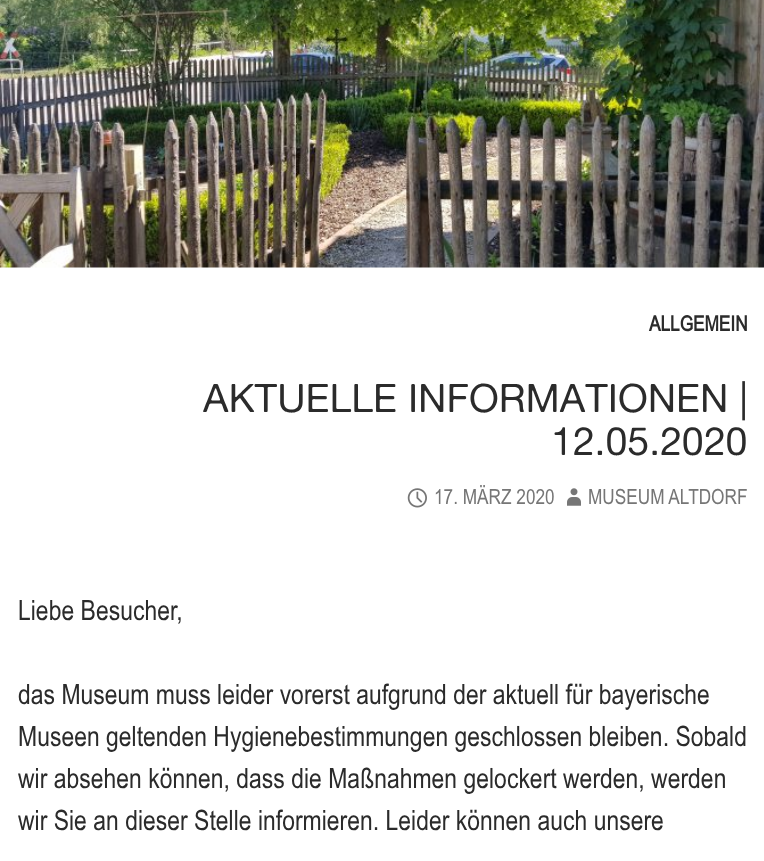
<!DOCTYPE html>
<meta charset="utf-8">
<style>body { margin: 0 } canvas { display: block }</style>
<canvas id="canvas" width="764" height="861"></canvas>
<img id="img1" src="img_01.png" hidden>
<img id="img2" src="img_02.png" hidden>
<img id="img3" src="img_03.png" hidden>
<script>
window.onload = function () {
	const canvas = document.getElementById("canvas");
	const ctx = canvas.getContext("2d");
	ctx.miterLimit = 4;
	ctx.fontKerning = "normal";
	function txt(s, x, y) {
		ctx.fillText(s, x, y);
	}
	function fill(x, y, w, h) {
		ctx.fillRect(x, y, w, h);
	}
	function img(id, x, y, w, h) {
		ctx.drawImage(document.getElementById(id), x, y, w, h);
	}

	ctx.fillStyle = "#FFFFFF";
	fill(0, 0, 764, 861);
	img("img1", 0, 0, 764, 268);
	img("img2", 407, 488, 20, 20);
	img("img3", 567, 488, 14, 18);
	ctx.font = "bold 21px Arial";
	ctx.fillStyle = "#2B2B2B";
	txt("ALLGEMEIN", 649, 331);
	ctx.font = "39.25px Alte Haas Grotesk";
	txt("AKTUELLE INFORMATIONEN |", 203, 412);
	txt("12.05.2020", 551, 455);
	ctx.font = "21px Arial";
	ctx.fillStyle = "#767676";
	txt("17. MÄRZ 2020", 434, 504);
	txt("MUSEUM ALTDORF", 588, 504);
	ctx.font = "28px Arial";
	ctx.fillStyle = "#2B2B2B";
	txt("Liebe Besucher,", 18, 620);
	txt("das Museum muss leider vorerst aufgrund der aktuell für bayerische", 18, 704);
	txt("Museen geltenden Hygienebestimmungen geschlossen bleiben. Sobald", 18, 746);
	txt("wir absehen können, dass die Maßnahmen gelockert werden, werden", 18, 788);
	txt("wir Sie an dieser Stelle informieren. Leider können auch unsere", 18, 830);
};
</script>
